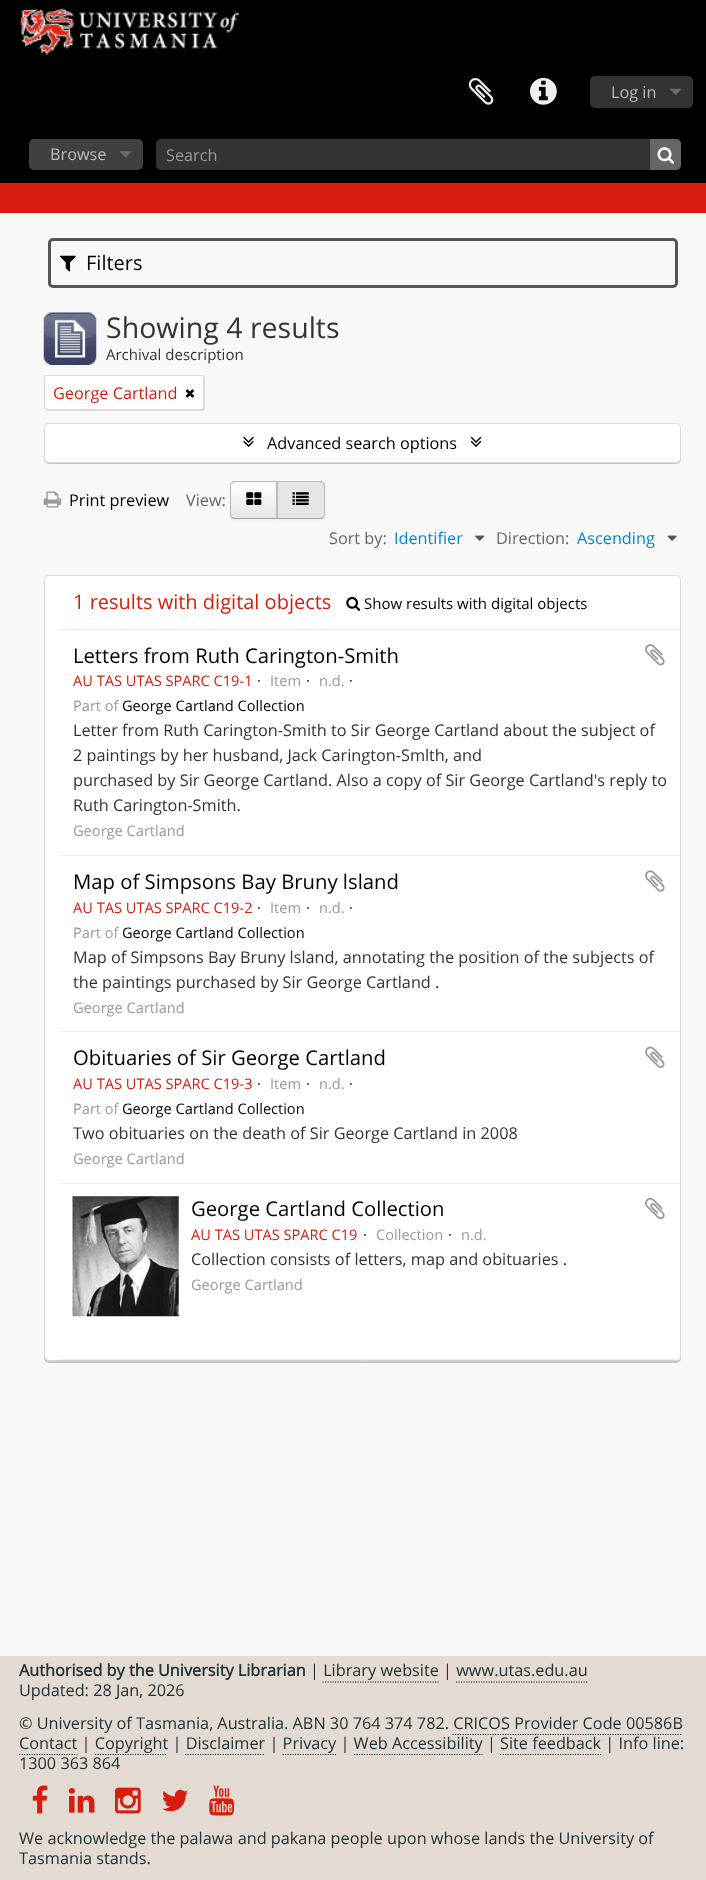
<!DOCTYPE html>
<meta charset="utf-8">
<style>body { margin: 0 } canvas { display: block }</style>
<canvas id="canvas" width="706" height="1880"></canvas>
<img id="img1" src="img_01.png" hidden>
<img id="img2" src="img_02.png" hidden>
<img id="img3" src="img_03.png" hidden>
<img id="img4" src="img_04.png" hidden>
<img id="img5" src="img_05.png" hidden>
<img id="img6" src="img_06.png" hidden>
<img id="img7" src="img_07.png" hidden>
<img id="img8" src="img_08.png" hidden>
<img id="img9" src="img_09.png" hidden>
<img id="img10" src="img_10.png" hidden>
<img id="img11" src="img_11.png" hidden>
<img id="img12" src="img_12.png" hidden>
<img id="img13" src="img_13.png" hidden>
<img id="img14" src="img_14.png" hidden>
<img id="img15" src="img_15.png" hidden>
<img id="img16" src="img_16.png" hidden>
<img id="img17" src="img_17.png" hidden>
<img id="img18" src="img_18.png" hidden>
<img id="img19" src="img_19.png" hidden>
<img id="img20" src="img_20.png" hidden>
<img id="img21" src="img_21.png" hidden>
<img id="img22" src="img_22.png" hidden>
<img id="img23" src="img_23.png" hidden>
<img id="img24" src="img_24.png" hidden>
<img id="img25" src="img_25.png" hidden>
<img id="img26" src="img_26.png" hidden>
<img id="img27" src="img_27.png" hidden>
<script>
window.onload = function () {
	const canvas = document.getElementById("canvas");
	const ctx = canvas.getContext("2d");
	ctx.miterLimit = 4;
	ctx.fontKerning = "normal";
	function txt(s, x, y) {
		ctx.fillText(s, x, y);
	}
	function fill(x, y, w, h) {
		ctx.fillRect(x, y, w, h);
	}
	function round(x, y, w, h, r) {
		ctx.beginPath();
		ctx.roundRect(x, y, w, h, r);
		ctx.fill();
	}
	function img(id, x, y, w, h) {
		ctx.drawImage(document.getElementById(id), x, y, w, h);
	}
	let gradient;

	ctx.fillStyle = "#F8F8F8";
	fill(0, 0, 706, 1880);
	ctx.fillStyle = "#000000";
	fill(0, 0, 706, 183);
	img("img1", 20, 8, 219, 48);
	img("img2", 468, 78, 26, 27);
	img("img3", 530, 77, 27, 28);
	ctx.fillStyle = "#333333";
	round(590, 76, 103, 32, 5);
	img("img4", 670, 88, 12, 7);
	ctx.fillStyle = "#404040";
	round(29, 139, 114, 31, 5);
	img("img5", 120, 151, 12, 7);
	ctx.fillStyle = "#333333";
	round(156, 139, 525, 31, 5);
	ctx.fillStyle = "rgba(0, 0, 0, 0.07)";
	ctx.beginPath();
	ctx.moveTo(161, 140);
	ctx.lineTo(676, 140);
	ctx.bezierCurveTo(679, 140, 681, 142, 681, 145);
	ctx.lineTo(681, 144);
	ctx.bezierCurveTo(681, 141, 679, 139, 676, 139);
	ctx.lineTo(161, 139);
	ctx.bezierCurveTo(158, 139, 156, 141, 156, 144);
	ctx.lineTo(156, 145);
	ctx.bezierCurveTo(156, 142, 158, 140, 161, 140);
	ctx.closePath();
	ctx.fill();
	ctx.fillStyle = "#666666";
	ctx.beginPath();
	ctx.roundRect(650, 139, 31, 31, [0, 5, 5, 0]);
	ctx.fill();
	img("img6", 657, 147, 18, 17);
	ctx.fillStyle = "#D71D0D";
	fill(0, 183, 706, 30);
	ctx.beginPath();
	ctx.roundRect(49.5, 239.5, 627, 47, 3.5);
	ctx.strokeStyle = "#555555";
	ctx.lineWidth = 3;
	ctx.stroke();
	img("img7", 60, 255, 16, 17);
	img("img8", 43, 312, 54, 53);
	ctx.fillStyle = "rgba(0, 0, 0, 0.1)";
	ctx.filter = "blur(0.5px)";
	ctx.beginPath();
	ctx.roundRect(45, 376, 160, 35, 2.5);
	ctx.fill();
	ctx.filter = "none";
	ctx.fillStyle = "#FFFFFF";
	ctx.beginPath();
	ctx.roundRect(44.5, 375.5, 159, 34, 2);
	ctx.fill();
	ctx.strokeStyle = "#D9D9D9";
	ctx.lineWidth = 1;
	ctx.stroke();
	img("img9", 185, 389, 9, 9);
	ctx.fillStyle = "rgba(0, 0, 0, 0.2)";
	ctx.filter = "blur(0.5px)";
	ctx.beginPath();
	ctx.roundRect(44, 424, 637, 40, 5);
	ctx.fill();
	ctx.filter = "none";
	ctx.fillStyle = "#FFFFFF";
	ctx.beginPath();
	ctx.roundRect(44.5, 423.5, 636, 39, 4.5);
	ctx.fill();
	ctx.stroke();
	img("img10", 243, 436, 11, 11);
	img("img11", 470, 436, 12, 11);
	img("img12", 43, 491, 19, 17);
	ctx.fillStyle = "rgba(0, 0, 0, 0.05)";
	ctx.filter = "blur(1px)";
	ctx.beginPath();
	ctx.roundRect(230, 483, 48, 37, 5);
	ctx.fill();
	ctx.filter = "none";
	ctx.fillStyle = "#F5F5F5";
	ctx.beginPath();
	ctx.roundRect(230, 481, 48, 38, [5, 0, 0, 5]);
	ctx.fill();
	ctx.save();
	ctx.beginPath();
	ctx.roundRect(230, 481, 48, 38, [5, 0, 0, 5]);
	ctx.clip();
	gradient = ctx.createLinearGradient(254, 483, 254, 518);
	gradient.addColorStop(0, "#FFFFFF");
	gradient.addColorStop(1, "#E6E6E6");
	ctx.fillStyle = gradient;
	fill(230, 483, 46, 35);
	ctx.restore();
	ctx.fillStyle = "#BBBBBB";
	ctx.beginPath();
	ctx.moveTo(235, 482);
	ctx.lineTo(232, 483);
	ctx.lineTo(231, 483);
	ctx.lineTo(233, 481);
	ctx.lineTo(278, 481);
	ctx.lineTo(276, 483);
	ctx.lineTo(276, 482);
	ctx.closePath();
	ctx.fill();
	ctx.fillStyle = "#A2A2A2";
	ctx.beginPath();
	ctx.moveTo(278, 519);
	ctx.lineTo(233, 519);
	ctx.lineTo(231, 517);
	ctx.lineTo(232, 517);
	ctx.bezierCurveTo(233, 517, 234, 518, 235, 518);
	ctx.lineTo(276, 518);
	ctx.lineTo(276, 517);
	ctx.closePath();
	ctx.fill();
	ctx.fillStyle = "#BBBBBB";
	ctx.beginPath();
	ctx.moveTo(230, 486);
	ctx.lineTo(230, 514);
	ctx.bezierCurveTo(230, 515.5, 230.5, 516.5, 231.5, 517.5);
	ctx.lineTo(232, 516.5);
	ctx.bezierCurveTo(231.5, 516, 231, 515, 231, 514);
	ctx.lineTo(231, 486);
	ctx.bezierCurveTo(231, 485, 231.5, 484, 232, 483.5);
	ctx.lineTo(231.5, 482.5);
	ctx.bezierCurveTo(230.5, 483.5, 230, 484.5, 230, 486);
	ctx.closePath();
	ctx.fill();
	img("img13", 246, 492, 16, 13);
	ctx.fillStyle = "rgba(0, 0, 0, 0.05)";
	ctx.filter = "blur(1px)";
	ctx.beginPath();
	ctx.roundRect(276, 483, 49, 37, 5);
	ctx.fill();
	ctx.filter = "none";
	ctx.fillStyle = "#E6E6E6";
	ctx.beginPath();
	ctx.roundRect(276, 481, 49, 38, [0, 5, 5, 0]);
	ctx.fill();
	ctx.fillStyle = "#BBBBBB";
	ctx.beginPath();
	ctx.moveTo(278, 482);
	ctx.lineTo(278, 483);
	ctx.lineTo(276, 481);
	ctx.lineTo(322, 481);
	ctx.lineTo(324, 483);
	ctx.lineTo(323, 483);
	ctx.lineTo(320, 482);
	ctx.closePath();
	ctx.fill();
	ctx.beginPath();
	ctx.moveTo(325, 514);
	ctx.lineTo(325, 486);
	ctx.bezierCurveTo(325, 484.5, 324.5, 483.5, 323.5, 482.5);
	ctx.lineTo(323, 483.5);
	ctx.bezierCurveTo(323.5, 484, 324, 485, 324, 486);
	ctx.lineTo(324, 514);
	ctx.bezierCurveTo(324, 515, 323.5, 516, 323, 516.5);
	ctx.lineTo(323.5, 517.5);
	ctx.bezierCurveTo(324.5, 516.5, 325, 515.5, 325, 514);
	ctx.closePath();
	ctx.fill();
	ctx.fillStyle = "#A2A2A2";
	ctx.beginPath();
	ctx.moveTo(324, 517);
	ctx.lineTo(322, 519);
	ctx.lineTo(276, 519);
	ctx.lineTo(278, 517);
	ctx.lineTo(278, 518);
	ctx.lineTo(320, 518);
	ctx.bezierCurveTo(321, 518, 322, 517, 323, 517);
	ctx.closePath();
	ctx.fill();
	ctx.fillStyle = "#BBBBBB";
	ctx.beginPath();
	ctx.moveTo(276, 519);
	ctx.lineTo(278, 517);
	ctx.lineTo(278, 483);
	ctx.lineTo(276, 481);
	ctx.closePath();
	ctx.fill();
	img("img14", 292, 492, 17, 13);
	img("img15", 475, 535, 10, 6);
	img("img16", 667, 535, 10, 6);
	ctx.fillStyle = "rgba(0, 0, 0, 0.2)";
	ctx.filter = "blur(0.5px)";
	ctx.beginPath();
	ctx.roundRect(44, 576, 637, 787, 5);
	ctx.fill();
	ctx.filter = "none";
	ctx.fillStyle = "#FFFFFF";
	ctx.beginPath();
	ctx.roundRect(44.5, 575.5, 636, 785, 4.5);
	ctx.fill();
	ctx.stroke();
	ctx.fillStyle = "#EEEEEE";
	fill(60, 629, 620, 1);
	img("img17", 346, 597, 15, 14);
	fill(60, 855, 620, 1);
	img("img18", 645, 644, 20, 22);
	fill(60, 1031, 620, 1);
	img("img19", 645, 870, 20, 22);
	fill(60, 1183, 620, 1);
	img("img20", 645, 1046, 20, 22);
	fill(60, 1359, 620, 1);
	img("img21", 72, 1196, 107, 121);
	img("img22", 645, 1197, 20, 23);
	ctx.fillStyle = "#E3DAD1";
	fill(0, 1656, 706, 224);
	ctx.beginPath();
	ctx.moveTo(322.5, 1682);
	ctx.lineTo(439, 1682);
	ctx.strokeStyle = "#21333A";
	ctx.lineWidth = 1.2;
	ctx.setLineDash([1.25, 1.25]);
	ctx.stroke();
	ctx.beginPath();
	ctx.moveTo(456, 1682);
	ctx.lineTo(587.5, 1682);
	ctx.stroke();
	ctx.beginPath();
	ctx.moveTo(452.5, 1734.5);
	ctx.lineTo(682.5, 1734.5);
	ctx.stroke();
	ctx.beginPath();
	ctx.moveTo(19, 1754.5);
	ctx.lineTo(77.5, 1754.5);
	ctx.stroke();
	ctx.beginPath();
	ctx.moveTo(95, 1754.5);
	ctx.lineTo(167.5, 1754.5);
	ctx.stroke();
	ctx.beginPath();
	ctx.moveTo(185, 1754.5);
	ctx.lineTo(265, 1754.5);
	ctx.stroke();
	ctx.beginPath();
	ctx.moveTo(282.5, 1754.5);
	ctx.lineTo(336, 1754.5);
	ctx.stroke();
	ctx.beginPath();
	ctx.moveTo(354, 1754.5);
	ctx.lineTo(482.5, 1754.5);
	ctx.stroke();
	ctx.beginPath();
	ctx.moveTo(500, 1754.5);
	ctx.lineTo(601, 1754.5);
	ctx.stroke();
	img("img23", 32, 1785, 16, 29);
	img("img24", 68, 1788, 27, 25);
	img("img25", 115, 1787, 26, 27);
	img("img26", 162, 1789, 27, 23);
	img("img27", 209, 1785, 25, 31);
	ctx.font = "16.25px Open Sans";
	ctx.fillStyle = "#BBBBBB";
	txt("Log in", 611, 98);
	txt("Browse", 50, 160);
	ctx.fillStyle = "#999999";
	txt("Search", 166, 161);
	ctx.font = "20px Open Sans";
	ctx.fillStyle = "#000000";
	txt("Filters", 86, 270);
	ctx.font = "28.5px Open Sans";
	ctx.fillStyle = "#333333";
	txt("Showing 4 results", 106, 338);
	ctx.font = "15px Open Sans";
	txt("Archival description", 106, 360);
	ctx.font = "16.25px Open Sans";
	ctx.fillStyle = "#D71D0D";
	txt("George Cartland", 53, 399);
	ctx.fillStyle = "#000000";
	txt("Advanced search options", 267, 449);
	txt("Print preview", 69, 506);
	ctx.fillStyle = "#666666";
	txt("View:", 186, 506);
	txt("Sort by:", 329, 544);
	ctx.fillStyle = "#0088CC";
	txt("Identifier", 394, 544);
	ctx.fillStyle = "#666666";
	txt("Direction:", 496, 544);
	ctx.fillStyle = "#0088CC";
	txt("Ascending", 577, 544);
	ctx.font = "20px Open Sans";
	ctx.fillStyle = "#D71D0D";
	txt("1 results with digital objects", 73, 609);
	ctx.font = "15px Open Sans";
	ctx.fillStyle = "#000000";
	txt("Show results with digital objects", 364, 609);
	ctx.font = "20.25px Open Sans";
	txt("Letters from Ruth Carington-Smith", 73, 663);
	ctx.font = "14.6px Open Sans";
	ctx.fillStyle = "#D71D0D";
	txt("AU TAS UTAS SPARC C19-1", 73, 686);
	ctx.fillStyle = "#000000";
	txt("·", 257, 686);
	ctx.fillStyle = "#999999";
	txt("Item", 270, 686);
	ctx.fillStyle = "#000000";
	txt("·", 306, 686);
	ctx.fillStyle = "#999999";
	txt("n.d.", 319, 686);
	ctx.fillStyle = "#000000";
	txt("·", 349, 686);
	ctx.fillStyle = "#999999";
	txt("Part of", 73, 711);
	ctx.fillStyle = "#000000";
	txt("George Cartland Collection", 122, 711);
	ctx.font = "16.25px Open Sans";
	ctx.fillStyle = "#333333";
	txt("Letter from Ruth Carington-Smith to Sir George Cartland about the subject of", 73, 736);
	txt("2 paintings by her husband, Jack Carington-Smlth, and", 73, 761);
	txt("purchased by Sir George Cartland. Also a copy of Sir George Cartland's reply to", 73, 786);
	txt("Ruth Carington-Smith.", 73, 811);
	ctx.font = "14.6px Open Sans";
	ctx.fillStyle = "#999999";
	txt("George Cartland", 73, 836);
	ctx.font = "20.25px Open Sans";
	ctx.fillStyle = "#000000";
	txt("Map of Simpsons Bay Bruny lsland", 73, 889);
	ctx.font = "14.6px Open Sans";
	ctx.fillStyle = "#D71D0D";
	txt("AU TAS UTAS SPARC C19-2", 73, 913);
	ctx.fillStyle = "#000000";
	txt("·", 257, 913);
	ctx.fillStyle = "#999999";
	txt("Item", 270, 913);
	ctx.fillStyle = "#000000";
	txt("·", 306, 913);
	ctx.fillStyle = "#999999";
	txt("n.d.", 319, 913);
	ctx.fillStyle = "#000000";
	txt("·", 349, 913);
	ctx.fillStyle = "#999999";
	txt("Part of", 73, 938);
	ctx.fillStyle = "#000000";
	txt("George Cartland Collection", 122, 938);
	ctx.font = "16.25px Open Sans";
	ctx.fillStyle = "#333333";
	txt("Map of Simpsons Bay Bruny lsland, annotating the position of the subjects of", 73, 963);
	txt("the paintings purchased by Sir George Cartland .", 73, 988);
	ctx.font = "14.6px Open Sans";
	ctx.fillStyle = "#999999";
	txt("George Cartland", 73, 1013);
	ctx.font = "20.25px Open Sans";
	ctx.fillStyle = "#000000";
	txt("Obituaries of Sir George Cartland", 73, 1065);
	ctx.font = "14.6px Open Sans";
	ctx.fillStyle = "#D71D0D";
	txt("AU TAS UTAS SPARC C19-3", 73, 1089);
	ctx.fillStyle = "#000000";
	txt("·", 257, 1089);
	ctx.fillStyle = "#999999";
	txt("Item", 270, 1089);
	ctx.fillStyle = "#000000";
	txt("·", 306, 1089);
	ctx.fillStyle = "#999999";
	txt("n.d.", 319, 1089);
	ctx.fillStyle = "#000000";
	txt("·", 349, 1089);
	ctx.fillStyle = "#999999";
	txt("Part of", 73, 1114);
	ctx.fillStyle = "#000000";
	txt("George Cartland Collection", 122, 1114);
	ctx.font = "16.25px Open Sans";
	ctx.fillStyle = "#333333";
	txt("Two obituaries on the death of Sir George Cartland in 2008", 73, 1139);
	ctx.font = "14.6px Open Sans";
	ctx.fillStyle = "#999999";
	txt("George Cartland", 73, 1164);
	ctx.font = "20.25px Open Sans";
	ctx.fillStyle = "#000000";
	txt("George Cartland Collection", 191, 1216);
	ctx.font = "14.6px Open Sans";
	ctx.fillStyle = "#D71D0D";
	txt("AU TAS UTAS SPARC C19", 191, 1240);
	ctx.fillStyle = "#000000";
	txt("·", 363, 1240);
	ctx.fillStyle = "#999999";
	txt("Collection", 376, 1240);
	ctx.fillStyle = "#000000";
	txt("·", 448, 1240);
	ctx.fillStyle = "#999999";
	txt("n.d.", 461, 1240);
	ctx.font = "16.25px Open Sans";
	ctx.fillStyle = "#333333";
	txt("Collection consists of letters, map and obituaries .", 191, 1265);
	ctx.font = "14.6px Open Sans";
	ctx.fillStyle = "#999999";
	txt("George Cartland", 191, 1290);
	ctx.font = "bold 16.25px Open Sans";
	ctx.fillStyle = "#21333A";
	txt("Authorised by the University Librarian", 19, 1676);
	ctx.font = "16.25px Open Sans";
	txt("| Library website | www.utas.edu.au", 310, 1676);
	txt("Updated: 28 Jan, 2026", 19, 1696);
	txt("© University of Tasmania, Australia. ABN 30 764 374 782. CRICOS Provider Code 00586B", 19, 1729);
	txt("Contact | Copyright | Disclaimer | Privacy | Web Accessibility | Site feedback | Info line:", 19, 1749);
	txt("1300 363 864", 19, 1769);
	txt("We acknowledge the palawa and pakana people upon whose lands the University of", 19, 1844);
	txt("Tasmania stands.", 19, 1864);
};
</script>
